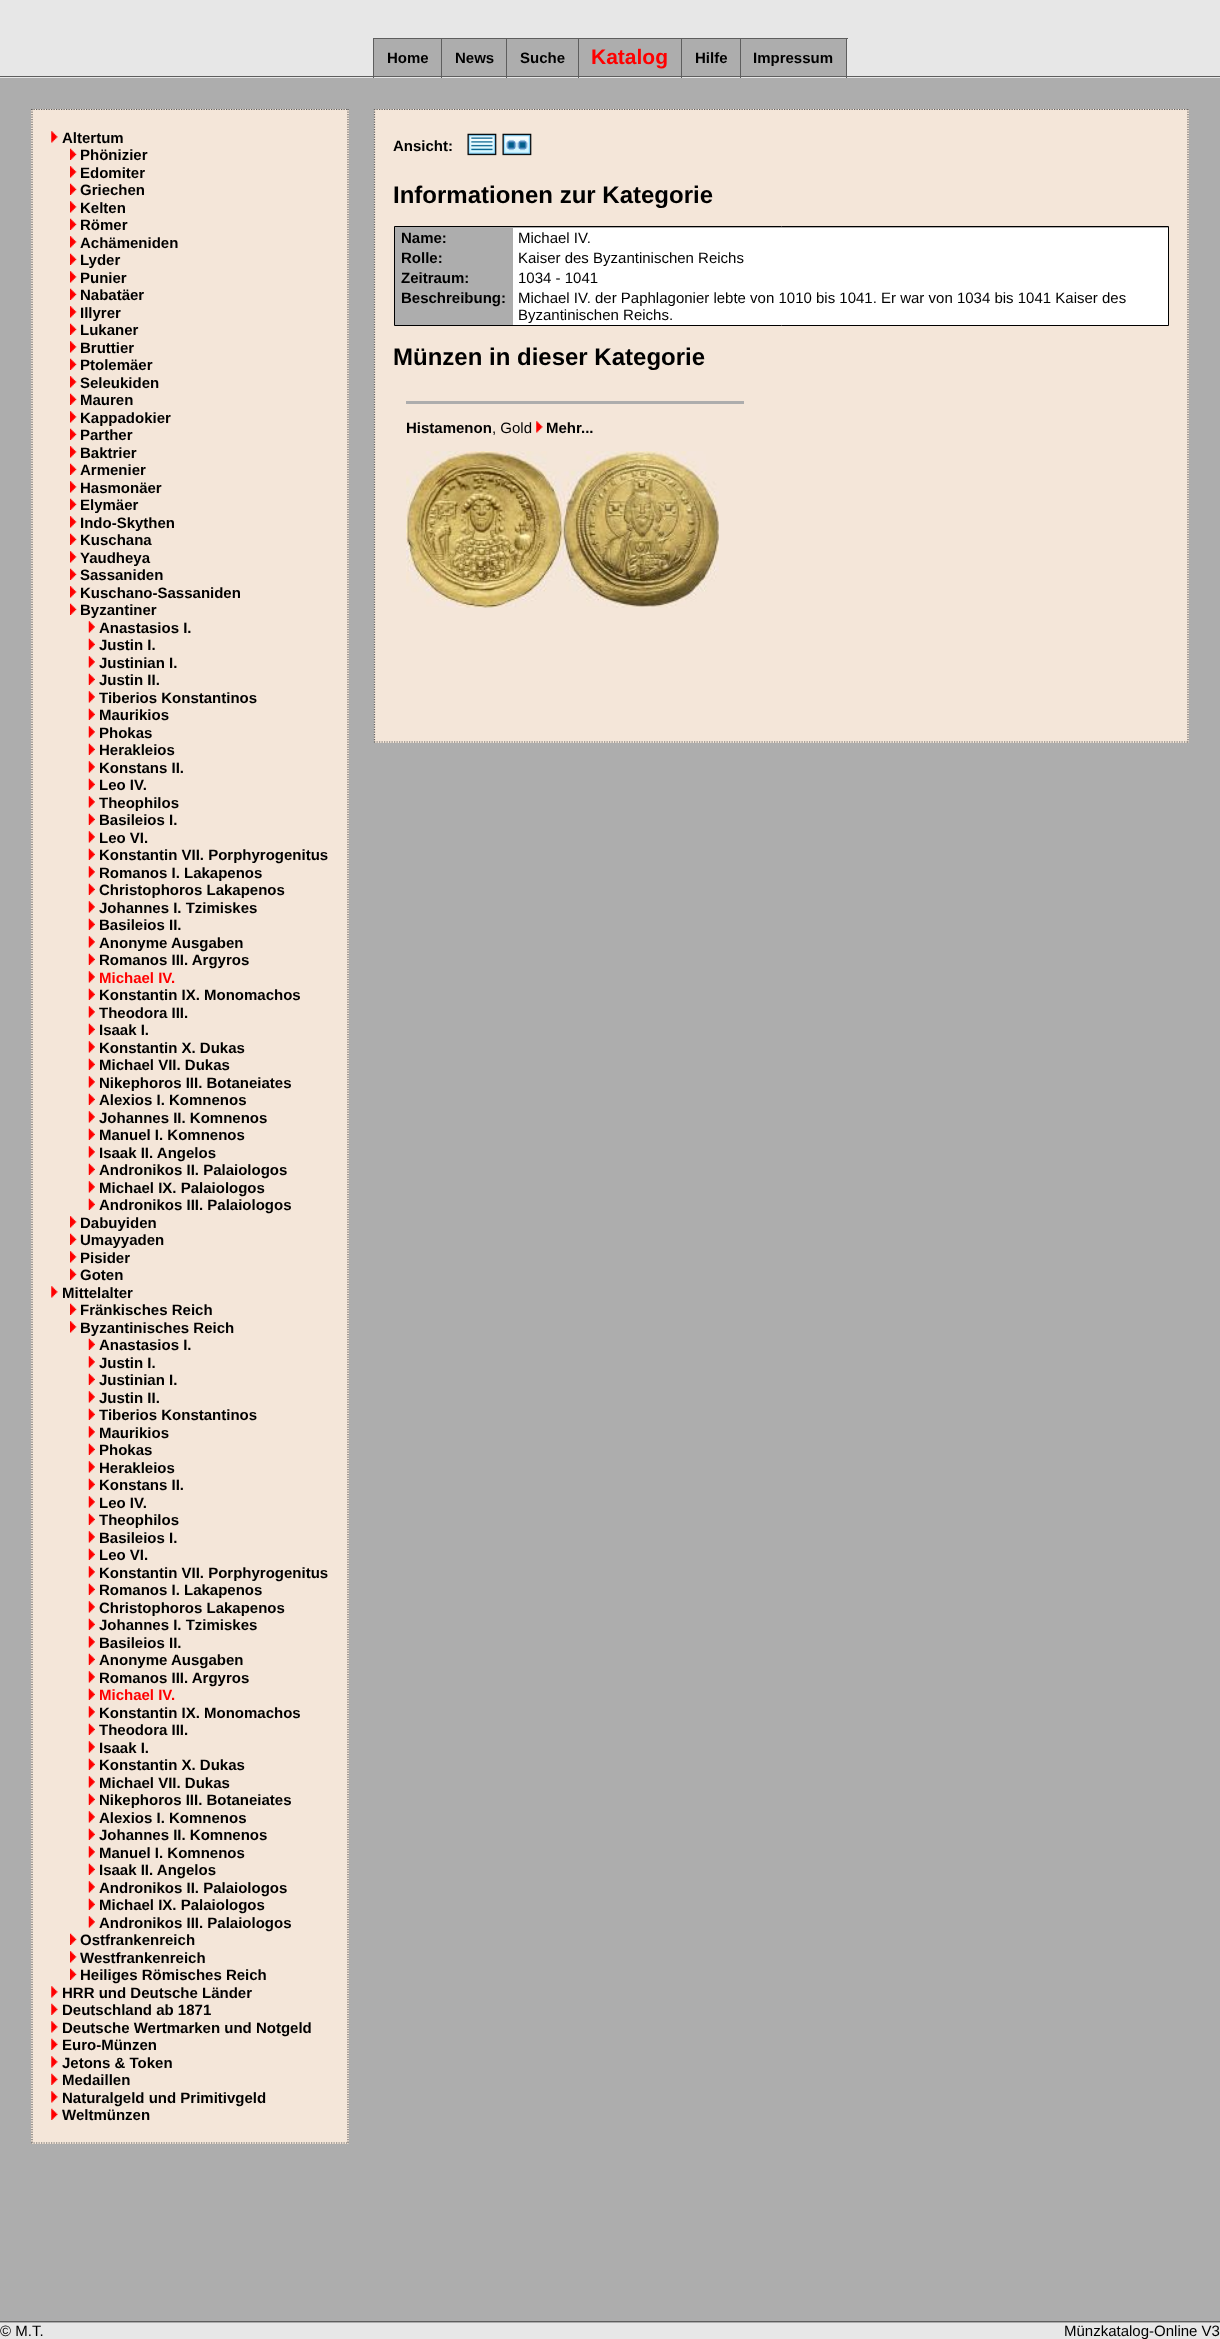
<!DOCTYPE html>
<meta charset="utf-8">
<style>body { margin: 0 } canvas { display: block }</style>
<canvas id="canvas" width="1220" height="2339"></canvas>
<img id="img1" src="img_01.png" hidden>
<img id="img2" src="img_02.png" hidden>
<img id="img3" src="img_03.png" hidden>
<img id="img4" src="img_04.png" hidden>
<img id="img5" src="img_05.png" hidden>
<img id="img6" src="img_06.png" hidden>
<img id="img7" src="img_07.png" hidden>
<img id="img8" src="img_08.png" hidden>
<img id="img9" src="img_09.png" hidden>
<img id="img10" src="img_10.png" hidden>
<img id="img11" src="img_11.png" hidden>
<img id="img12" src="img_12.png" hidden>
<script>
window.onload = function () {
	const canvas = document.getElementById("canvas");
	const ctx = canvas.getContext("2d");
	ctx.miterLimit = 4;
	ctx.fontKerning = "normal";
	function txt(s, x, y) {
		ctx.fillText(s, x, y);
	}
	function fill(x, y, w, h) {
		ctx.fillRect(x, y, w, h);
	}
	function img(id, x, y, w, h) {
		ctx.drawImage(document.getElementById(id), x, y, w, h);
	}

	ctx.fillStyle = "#E7E7E7";
	fill(0, 0, 1220, 2339);
	ctx.fillStyle = "#ADADAD";
	fill(374, 39, 67, 37);
	ctx.fillStyle = "#5E5E5E";
	fill(740, 38, 108, 1);
	fill(740, 38, 1, 40);
	fill(681, 38, 60, 1);
	fill(681, 38, 1, 40);
	fill(578, 38, 105, 1);
	fill(578, 38, 1, 40);
	fill(506, 38, 73, 1);
	ctx.fillStyle = "#ADADAD";
	fill(442, 39, 136, 37);
	ctx.fillStyle = "#5E5E5E";
	fill(506, 38, 1, 40);
	fill(441, 38, 67, 1);
	fill(441, 38, 1, 40);
	fill(373, 38, 70, 1);
	fill(373, 38, 1, 40);
	ctx.fillStyle = "#ADADAD";
	fill(579, 39, 102, 37);
	fill(682, 39, 58, 37);
	fill(741, 39, 105, 37);
	ctx.fillStyle = "#5E5E5E";
	fill(846, 38, 1, 40);
	ctx.fillStyle = "#ADADAD";
	fill(0, 78, 1220, 2245);
	ctx.fillStyle = "#5E5E5E";
	fill(0, 76, 1220, 1);
	fill(0, 2321, 1220, 1);
	ctx.fillStyle = "#F4E6D9";
	fill(31, 109, 318, 2035);
	ctx.beginPath();
	ctx.moveTo(31, 109.5);
	ctx.lineTo(349, 109.5);
	ctx.strokeStyle = "#5E5E5E";
	ctx.lineWidth = 1.2;
	ctx.setLineDash([1.25, 1.25]);
	ctx.stroke();
	ctx.beginPath();
	ctx.moveTo(348, 109);
	ctx.lineTo(348, 2144);
	ctx.stroke();
	ctx.beginPath();
	ctx.moveTo(31, 2143);
	ctx.lineTo(349, 2143);
	ctx.stroke();
	ctx.beginPath();
	ctx.moveTo(32, 109);
	ctx.lineTo(32, 2144);
	ctx.stroke();
	img("img1", 51, 131, 7, 12);
	img("img2", 70, 148, 7, 12);
	img("img3", 70, 166, 7, 12);
	img("img2", 70, 183, 7, 12);
	img("img3", 70, 201, 7, 12);
	img("img2", 70, 218, 7, 12);
	img("img3", 70, 236, 7, 12);
	img("img2", 70, 253, 7, 12);
	img("img3", 70, 271, 7, 12);
	img("img4", 70, 288, 7, 12);
	img("img3", 70, 306, 7, 12);
	img("img2", 70, 323, 7, 12);
	img("img3", 70, 341, 7, 12);
	img("img2", 70, 358, 7, 12);
	img("img3", 70, 376, 7, 12);
	img("img2", 70, 393, 7, 12);
	img("img3", 70, 411, 7, 12);
	img("img2", 70, 428, 7, 12);
	img("img3", 70, 446, 7, 12);
	img("img2", 70, 463, 7, 12);
	img("img3", 70, 481, 7, 12);
	img("img2", 70, 498, 7, 12);
	img("img3", 70, 516, 7, 12);
	img("img2", 70, 533, 7, 12);
	img("img3", 70, 551, 7, 12);
	img("img2", 70, 568, 7, 12);
	img("img5", 70, 586, 7, 12);
	img("img2", 70, 603, 7, 12);
	img("img6", 88, 621, 7, 12);
	img("img7", 88, 638, 7, 12);
	img("img6", 88, 656, 7, 12);
	img("img7", 88, 673, 7, 12);
	img("img6", 88, 691, 7, 12);
	img("img7", 88, 708, 7, 12);
	img("img6", 88, 726, 7, 12);
	img("img7", 88, 743, 7, 12);
	img("img6", 88, 761, 7, 12);
	img("img8", 88, 778, 7, 12);
	img("img6", 88, 796, 7, 12);
	img("img7", 88, 813, 7, 12);
	img("img6", 88, 831, 7, 12);
	img("img7", 88, 848, 7, 12);
	img("img6", 88, 866, 7, 12);
	img("img7", 88, 883, 7, 12);
	img("img6", 88, 901, 7, 12);
	img("img7", 88, 918, 7, 12);
	img("img6", 88, 936, 7, 12);
	img("img7", 88, 953, 7, 12);
	img("img6", 88, 971, 7, 12);
	img("img7", 88, 988, 7, 12);
	img("img6", 88, 1006, 7, 12);
	img("img8", 88, 1023, 7, 12);
	img("img6", 88, 1041, 7, 12);
	img("img7", 88, 1058, 7, 12);
	img("img6", 88, 1076, 7, 12);
	img("img7", 88, 1093, 7, 12);
	img("img6", 88, 1111, 7, 12);
	img("img7", 88, 1128, 7, 12);
	img("img6", 88, 1146, 7, 12);
	img("img7", 88, 1163, 7, 12);
	img("img6", 88, 1181, 7, 12);
	img("img7", 88, 1198, 7, 12);
	img("img3", 70, 1216, 7, 12);
	img("img2", 70, 1233, 7, 12);
	img("img3", 70, 1251, 7, 12);
	img("img2", 70, 1268, 7, 12);
	img("img1", 51, 1286, 7, 12);
	img("img2", 70, 1303, 7, 12);
	img("img3", 70, 1321, 7, 12);
	img("img7", 88, 1338, 7, 12);
	img("img6", 88, 1356, 7, 12);
	img("img7", 88, 1373, 7, 12);
	img("img6", 88, 1391, 7, 12);
	img("img7", 88, 1408, 7, 12);
	img("img6", 88, 1426, 7, 12);
	img("img7", 88, 1443, 7, 12);
	img("img6", 88, 1461, 7, 12);
	img("img7", 88, 1478, 7, 12);
	img("img6", 88, 1496, 7, 12);
	img("img7", 88, 1513, 7, 12);
	img("img6", 88, 1531, 7, 12);
	img("img7", 88, 1548, 7, 12);
	img("img6", 88, 1566, 7, 12);
	img("img7", 88, 1583, 7, 12);
	img("img6", 88, 1601, 7, 12);
	img("img7", 88, 1618, 7, 12);
	img("img6", 88, 1636, 7, 12);
	img("img7", 88, 1653, 7, 12);
	img("img6", 88, 1671, 7, 12);
	img("img7", 88, 1688, 7, 12);
	img("img6", 88, 1706, 7, 12);
	img("img7", 88, 1723, 7, 12);
	img("img6", 88, 1741, 7, 12);
	img("img7", 88, 1758, 7, 12);
	img("img6", 88, 1776, 7, 12);
	img("img7", 88, 1793, 7, 12);
	img("img6", 88, 1811, 7, 12);
	img("img7", 88, 1828, 7, 12);
	img("img6", 88, 1846, 7, 12);
	img("img7", 88, 1863, 7, 12);
	img("img6", 88, 1881, 7, 12);
	img("img7", 88, 1898, 7, 12);
	img("img6", 88, 1916, 7, 12);
	img("img2", 70, 1933, 7, 12);
	img("img3", 70, 1951, 7, 12);
	img("img2", 70, 1968, 7, 12);
	img("img1", 51, 1986, 7, 12);
	img("img9", 51, 2003, 7, 12);
	img("img1", 51, 2021, 7, 12);
	img("img9", 51, 2038, 7, 12);
	img("img1", 51, 2056, 7, 12);
	img("img9", 51, 2073, 7, 12);
	img("img1", 51, 2091, 7, 12);
	img("img9", 51, 2108, 7, 12);
	fill(374, 109, 815, 634);
	ctx.beginPath();
	ctx.moveTo(374, 109.5);
	ctx.lineTo(1189, 109.5);
	ctx.stroke();
	ctx.beginPath();
	ctx.moveTo(1188, 109);
	ctx.lineTo(1188, 742.5);
	ctx.stroke();
	ctx.beginPath();
	ctx.moveTo(374, 742);
	ctx.lineTo(1189, 742);
	ctx.stroke();
	ctx.beginPath();
	ctx.moveTo(374.5, 109);
	ctx.lineTo(374.5, 742.5);
	ctx.stroke();
	img("img10", 467, 133, 30, 23);
	img("img11", 502, 133, 30, 23);
	ctx.fillStyle = "#ADADAD";
	ctx.beginPath();
	ctx.rect(394.5, 226.5, 774, 99);
	ctx.fill();
	ctx.strokeStyle = "#000000";
	ctx.lineWidth = 1;
	ctx.setLineDash([]);
	ctx.stroke();
	ctx.fillStyle = "#FFFFFF";
	fill(513, 228, 655, 97);
	ctx.fillStyle = "#ADADAD";
	fill(406, 401, 338, 3);
	img("img1", 536, 421, 7, 12);
	img("img12", 406, 451, 313, 157);
	ctx.font = "bold 15px Liberation Sans";
	ctx.fillStyle = "#000000";
	txt("Home", 387, 63);
	txt("News", 455, 63);
	txt("Suche", 520, 63);
	ctx.font = "bold 21px Liberation Sans";
	ctx.fillStyle = "#FF0000";
	txt("Katalog", 591, 64);
	ctx.font = "bold 15px Liberation Sans";
	ctx.fillStyle = "#000000";
	txt("Hilfe", 695, 63);
	txt("Impressum", 753, 63);
	txt("Altertum", 62, 143);
	txt("Phönizier", 80, 160);
	txt("Edomiter", 80, 178);
	txt("Griechen", 80, 195);
	txt("Kelten", 80, 213);
	txt("Römer", 80, 230);
	txt("Achämeniden", 80, 248);
	txt("Lyder", 80, 265);
	txt("Punier", 80, 283);
	txt("Nabatäer", 80, 300);
	txt("Illyrer", 80, 318);
	txt("Lukaner", 80, 335);
	txt("Bruttier", 80, 353);
	txt("Ptolemäer", 80, 370);
	txt("Seleukiden", 80, 388);
	txt("Mauren", 80, 405);
	txt("Kappadokier", 80, 423);
	txt("Parther", 80, 440);
	txt("Baktrier", 80, 458);
	txt("Armenier", 80, 475);
	txt("Hasmonäer", 80, 493);
	txt("Elymäer", 80, 510);
	txt("Indo-Skythen", 80, 528);
	txt("Kuschana", 80, 545);
	txt("Yaudheya", 80, 563);
	txt("Sassaniden", 80, 580);
	txt("Kuschano-Sassaniden", 80, 598);
	txt("Byzantiner", 80, 615);
	txt("Anastasios I.", 99, 633);
	txt("Justin I.", 99, 650);
	txt("Justinian I.", 99, 668);
	txt("Justin II.", 99, 685);
	txt("Tiberios Konstantinos", 99, 703);
	txt("Maurikios", 99, 720);
	txt("Phokas", 99, 738);
	txt("Herakleios", 99, 755);
	txt("Konstans II.", 99, 773);
	txt("Leo IV.", 99, 790);
	txt("Theophilos", 99, 808);
	txt("Basileios I.", 99, 825);
	txt("Leo VI.", 99, 843);
	txt("Konstantin VII. Porphyrogenitus", 99, 860);
	txt("Romanos I. Lakapenos", 99, 878);
	txt("Christophoros Lakapenos", 99, 895);
	txt("Johannes I. Tzimiskes", 99, 913);
	txt("Basileios II.", 99, 930);
	txt("Anonyme Ausgaben", 99, 948);
	txt("Romanos III. Argyros", 99, 965);
	ctx.fillStyle = "#FF0000";
	txt("Michael IV.", 99, 983);
	ctx.fillStyle = "#000000";
	txt("Konstantin IX. Monomachos", 99, 1000);
	txt("Theodora III.", 99, 1018);
	txt("Isaak I.", 99, 1035);
	txt("Konstantin X. Dukas", 99, 1053);
	txt("Michael VII. Dukas", 99, 1070);
	txt("Nikephoros III. Botaneiates", 99, 1088);
	txt("Alexios I. Komnenos", 99, 1105);
	txt("Johannes II. Komnenos", 99, 1123);
	txt("Manuel I. Komnenos", 99, 1140);
	txt("Isaak II. Angelos", 99, 1158);
	txt("Andronikos II. Palaiologos", 99, 1175);
	txt("Michael IX. Palaiologos", 99, 1193);
	txt("Andronikos III. Palaiologos", 99, 1210);
	txt("Dabuyiden", 80, 1228);
	txt("Umayyaden", 80, 1245);
	txt("Pisider", 80, 1263);
	txt("Goten", 80, 1280);
	txt("Mittelalter", 62, 1298);
	txt("Fränkisches Reich", 80, 1315);
	txt("Byzantinisches Reich", 80, 1333);
	txt("Anastasios I.", 99, 1350);
	txt("Justin I.", 99, 1368);
	txt("Justinian I.", 99, 1385);
	txt("Justin II.", 99, 1403);
	txt("Tiberios Konstantinos", 99, 1420);
	txt("Maurikios", 99, 1438);
	txt("Phokas", 99, 1455);
	txt("Herakleios", 99, 1473);
	txt("Konstans II.", 99, 1490);
	txt("Leo IV.", 99, 1508);
	txt("Theophilos", 99, 1525);
	txt("Basileios I.", 99, 1543);
	txt("Leo VI.", 99, 1560);
	txt("Konstantin VII. Porphyrogenitus", 99, 1578);
	txt("Romanos I. Lakapenos", 99, 1595);
	txt("Christophoros Lakapenos", 99, 1613);
	txt("Johannes I. Tzimiskes", 99, 1630);
	txt("Basileios II.", 99, 1648);
	txt("Anonyme Ausgaben", 99, 1665);
	txt("Romanos III. Argyros", 99, 1683);
	ctx.fillStyle = "#FF0000";
	txt("Michael IV.", 99, 1700);
	ctx.fillStyle = "#000000";
	txt("Konstantin IX. Monomachos", 99, 1718);
	txt("Theodora III.", 99, 1735);
	txt("Isaak I.", 99, 1753);
	txt("Konstantin X. Dukas", 99, 1770);
	txt("Michael VII. Dukas", 99, 1788);
	txt("Nikephoros III. Botaneiates", 99, 1805);
	txt("Alexios I. Komnenos", 99, 1823);
	txt("Johannes II. Komnenos", 99, 1840);
	txt("Manuel I. Komnenos", 99, 1858);
	txt("Isaak II. Angelos", 99, 1875);
	txt("Andronikos II. Palaiologos", 99, 1893);
	txt("Michael IX. Palaiologos", 99, 1910);
	txt("Andronikos III. Palaiologos", 99, 1928);
	txt("Ostfrankenreich", 80, 1945);
	txt("Westfrankenreich", 80, 1963);
	txt("Heiliges Römisches Reich", 80, 1980);
	txt("HRR und Deutsche Länder", 62, 1998);
	txt("Deutschland ab 1871", 62, 2015);
	txt("Deutsche Wertmarken und Notgeld", 62, 2033);
	txt("Euro-Münzen", 62, 2050);
	txt("Jetons & Token", 62, 2068);
	txt("Medaillen", 62, 2085);
	txt("Naturalgeld und Primitivgeld", 62, 2103);
	txt("Weltmünzen", 62, 2120);
	txt("Ansicht:", 393, 151);
	ctx.font = "bold 24px Liberation Sans";
	txt("Informationen zur Kategorie", 393, 203);
	ctx.font = "bold 15px Liberation Sans";
	txt("Name:", 401, 243);
	ctx.font = "15px Liberation Sans";
	txt("Michael IV.", 518, 243);
	ctx.font = "bold 15px Liberation Sans";
	txt("Rolle:", 401, 263);
	ctx.font = "15px Liberation Sans";
	txt("Kaiser des Byzantinischen Reichs", 518, 263);
	ctx.font = "bold 15px Liberation Sans";
	txt("Zeitraum:", 401, 283);
	ctx.font = "15px Liberation Sans";
	txt("1034 - 1041", 518, 283);
	ctx.font = "bold 15px Liberation Sans";
	txt("Beschreibung:", 401, 303);
	ctx.font = "15px Liberation Sans";
	txt("Michael IV. der Paphlagonier lebte von 1010 bis 1041. Er war von 1034 bis 1041 Kaiser des", 518, 303);
	txt("Byzantinischen Reichs.", 518, 320);
	ctx.font = "bold 24px Liberation Sans";
	txt("Münzen in dieser Kategorie", 393, 365);
	ctx.font = "bold 15px Liberation Sans";
	txt("Histamenon", 406, 433);
	ctx.font = "15px Liberation Sans";
	txt(", Gold", 492, 433);
	ctx.font = "bold 15px Liberation Sans";
	txt("Mehr...", 546, 433);
	ctx.font = "15px Liberation Sans";
	txt("© M.T.", 0, 2336);
	txt("Münzkatalog-Online V3", 1064, 2336);
};
</script>
